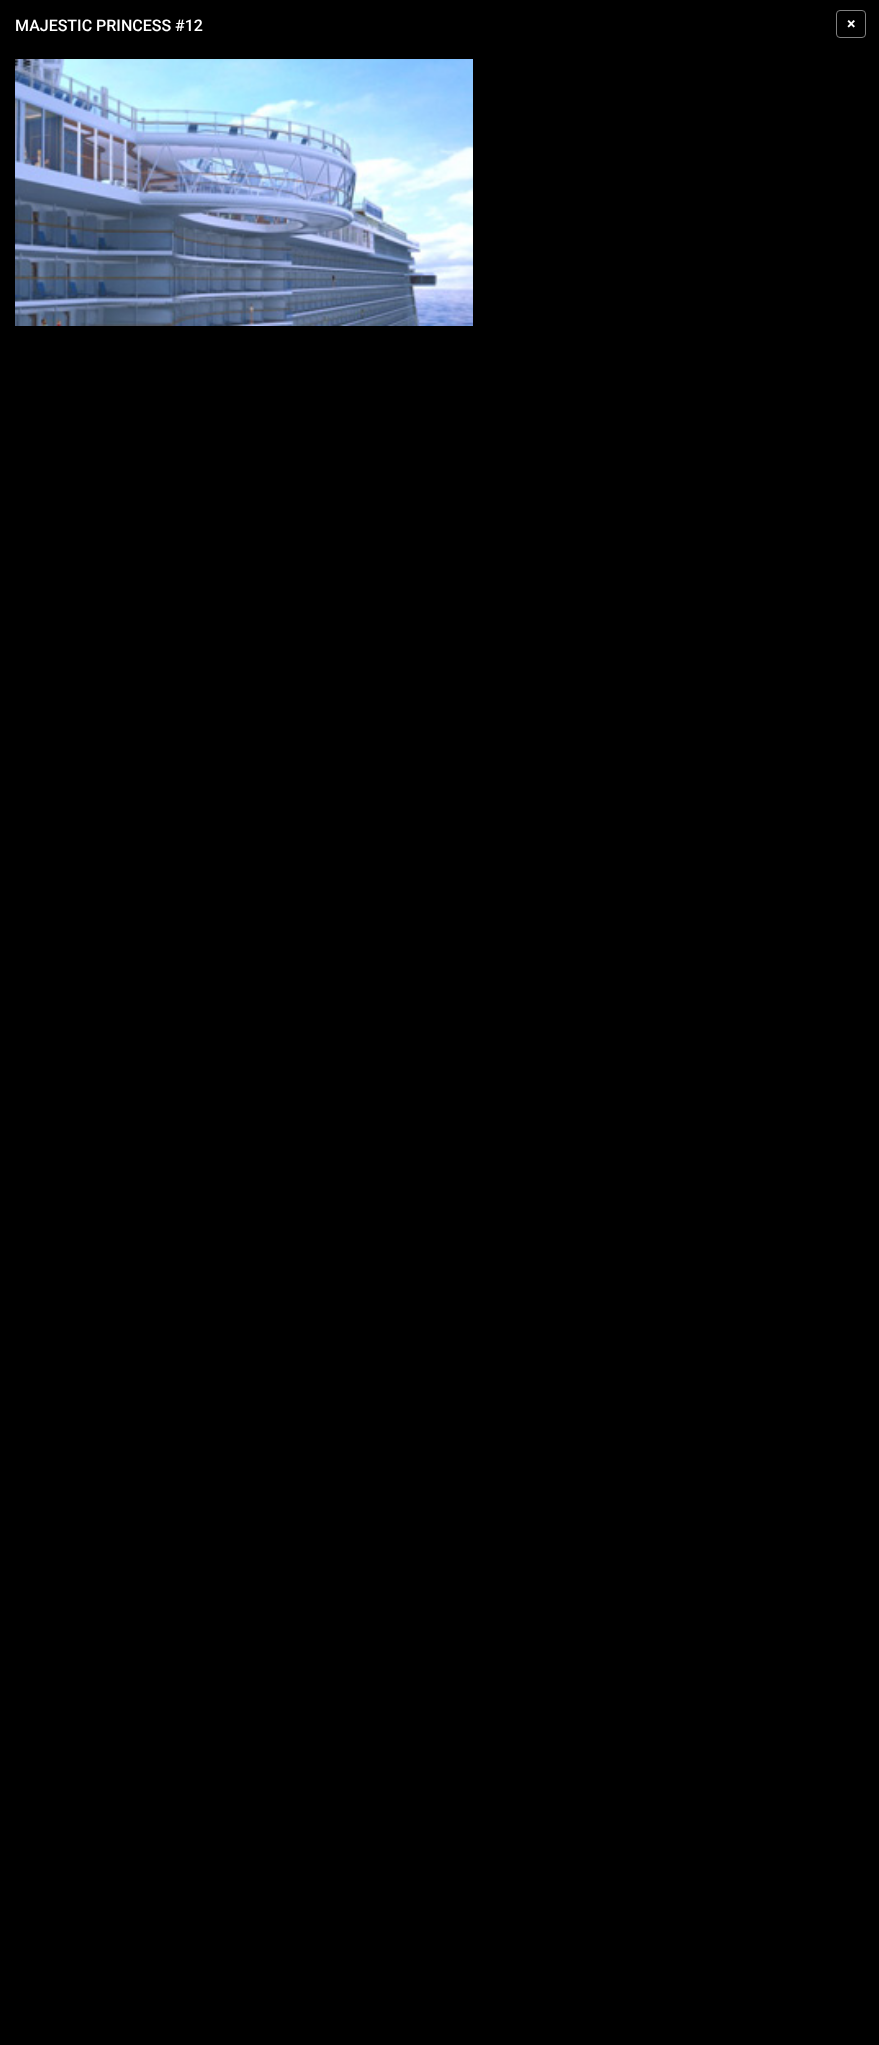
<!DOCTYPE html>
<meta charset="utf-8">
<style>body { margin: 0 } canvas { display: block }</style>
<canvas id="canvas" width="879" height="2045"></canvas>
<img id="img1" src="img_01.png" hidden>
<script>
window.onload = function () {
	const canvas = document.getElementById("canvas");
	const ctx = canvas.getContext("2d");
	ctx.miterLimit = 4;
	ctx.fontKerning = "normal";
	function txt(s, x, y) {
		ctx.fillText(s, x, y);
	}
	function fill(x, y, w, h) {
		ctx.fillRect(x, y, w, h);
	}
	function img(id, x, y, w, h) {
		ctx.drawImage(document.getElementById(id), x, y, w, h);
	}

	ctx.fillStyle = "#000000";
	fill(0, 0, 879, 2045);
	img("img1", 15, 59, 458, 267);
	ctx.beginPath();
	ctx.roundRect(836.5, 10.5, 29, 27, 3.5);
	ctx.strokeStyle = "#808080";
	ctx.stroke();
	ctx.font = "500 16px Roboto";
	ctx.fillStyle = "#FFFFFF";
	txt("MAJESTIC PRINCESS #12", 15, 31);
	ctx.font = "bold 16px Roboto";
	txt("×", 847, 29);
};
</script>
